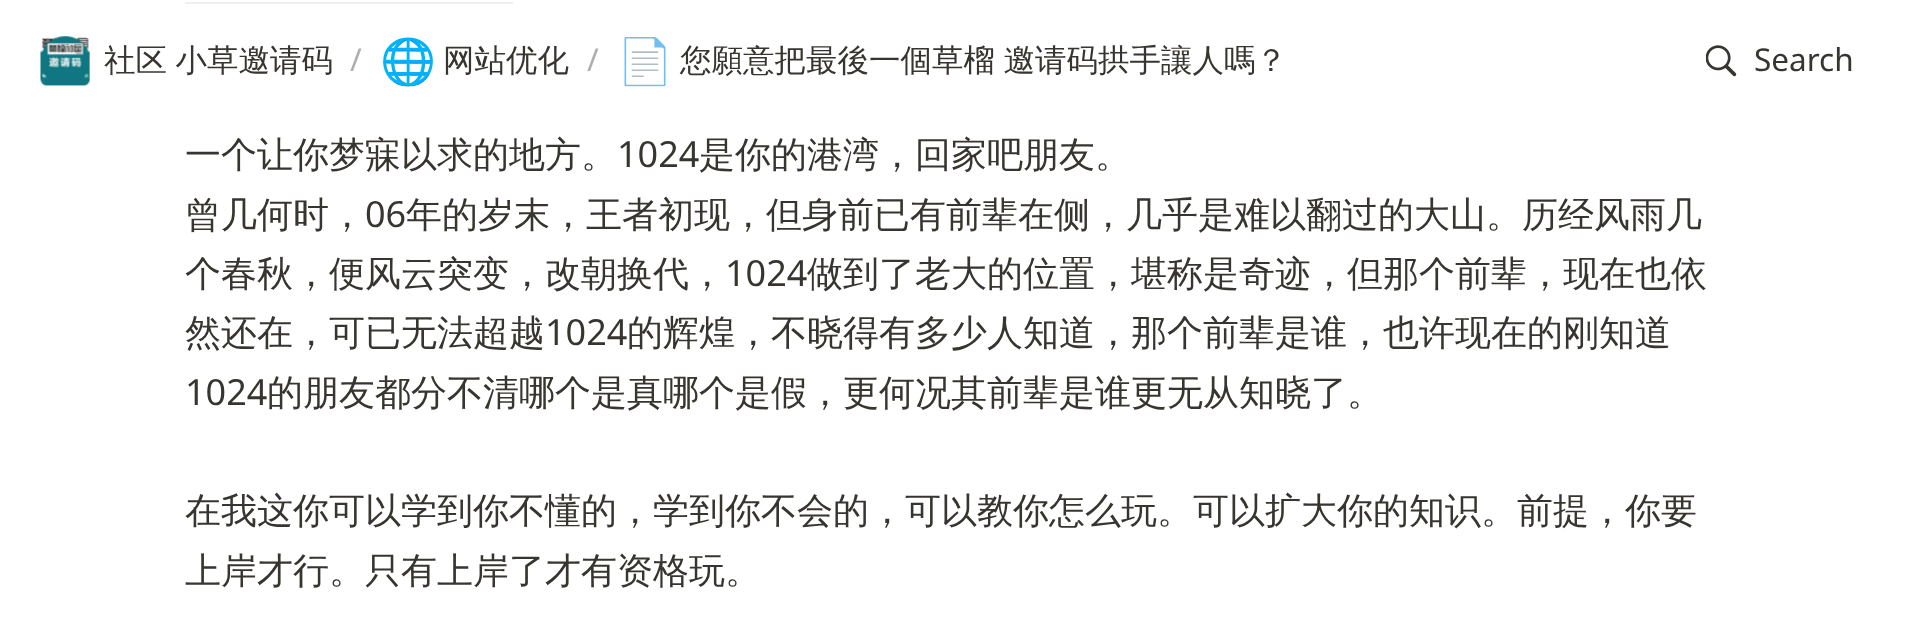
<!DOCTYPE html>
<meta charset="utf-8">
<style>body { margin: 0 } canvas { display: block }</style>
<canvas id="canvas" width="1908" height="641"></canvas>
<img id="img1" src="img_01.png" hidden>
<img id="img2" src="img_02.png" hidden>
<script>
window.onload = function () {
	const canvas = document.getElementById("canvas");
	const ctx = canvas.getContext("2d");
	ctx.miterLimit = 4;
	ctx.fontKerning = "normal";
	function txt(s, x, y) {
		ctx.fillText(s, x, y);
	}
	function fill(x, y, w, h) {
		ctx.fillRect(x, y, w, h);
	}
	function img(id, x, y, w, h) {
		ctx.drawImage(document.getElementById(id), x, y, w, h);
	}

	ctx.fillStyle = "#FFFFFF";
	fill(0, 0, 1908, 641);
	img("img1", 40, 36, 50, 50);
	img("img2", 1706, 45, 31, 32);
	ctx.fillStyle = "#EFEFEE";
	fill(185, 2, 328, 2);
	ctx.wordSpacing = "-1px";
	ctx.font = "500 31.5px WenQuanYi Zen Hei";
	ctx.fillStyle = "#37352F";
	txt("社区 小草邀请码", 104, 71);
	ctx.wordSpacing = "0px";
	ctx.font = "31.5px Noto Sans";
	ctx.fillStyle = "#AFAEAC";
	txt("/", 350, 71);
	ctx.font = "45px Noto Color Emoji";
	ctx.fillStyle = "#37352F";
	txt("🌐", 380, 77);
	ctx.font = "500 31.5px WenQuanYi Zen Hei";
	txt("网站优化", 443, 71);
	ctx.font = "31.5px Noto Sans";
	ctx.fillStyle = "#AFAEAC";
	txt("/", 587, 71);
	ctx.font = "45px Noto Color Emoji";
	ctx.fillStyle = "#37352F";
	txt("📄", 617, 77);
	ctx.wordSpacing = "-1px";
	ctx.font = "500 31.5px WenQuanYi Zen Hei";
	txt("您願意把最後一個草榴 邀请码拱手讓人嗎？", 680, 71);
	ctx.wordSpacing = "0px";
	ctx.font = "31.5px Noto Sans";
	txt("Search", 1754, 71);
	ctx.font = "500 36px WenQuanYi Zen Hei";
	txt("一个让你梦寐以求的地方。", 185, 167);
	ctx.font = "36px Noto Sans";
	txt("1024", 617, 167);
	ctx.font = "500 36px WenQuanYi Zen Hei";
	txt("是你的港湾，回家吧朋友。", 699, 167);
	txt("曾几何时，", 185, 227);
	ctx.font = "36px Noto Sans";
	txt("06", 365, 227);
	ctx.font = "500 36px WenQuanYi Zen Hei";
	txt("年的岁末，王者初现，但身前已有前辈在侧，几乎是难以翻过的大山。历经风雨几", 406, 227);
	txt("个春秋，便风云突变，改朝换代，", 185, 286);
	ctx.font = "36px Noto Sans";
	txt("1024", 725, 286);
	ctx.font = "500 36px WenQuanYi Zen Hei";
	txt("做到了老大的位置，堪称是奇迹，但那个前辈，现在也依", 807, 286);
	txt("然还在，可已无法超越", 185, 345);
	ctx.font = "36px Noto Sans";
	txt("1024", 545, 345);
	ctx.font = "500 36px WenQuanYi Zen Hei";
	txt("的辉煌，不晓得有多少人知道，那个前辈是谁，也许现在的刚知道", 627, 345);
	ctx.font = "36px Noto Sans";
	txt("1024", 185, 405);
	ctx.font = "500 36px WenQuanYi Zen Hei";
	txt("的朋友都分不清哪个是真哪个是假，更何况其前辈是谁更无从知晓了。", 267, 405);
	txt("在我这你可以学到你不懂的，学到你不会的，可以教你怎么玩。可以扩大你的知识。前提，你要", 185, 523);
	txt("上岸才行。只有上岸了才有资格玩。", 185, 583);
};
</script>
